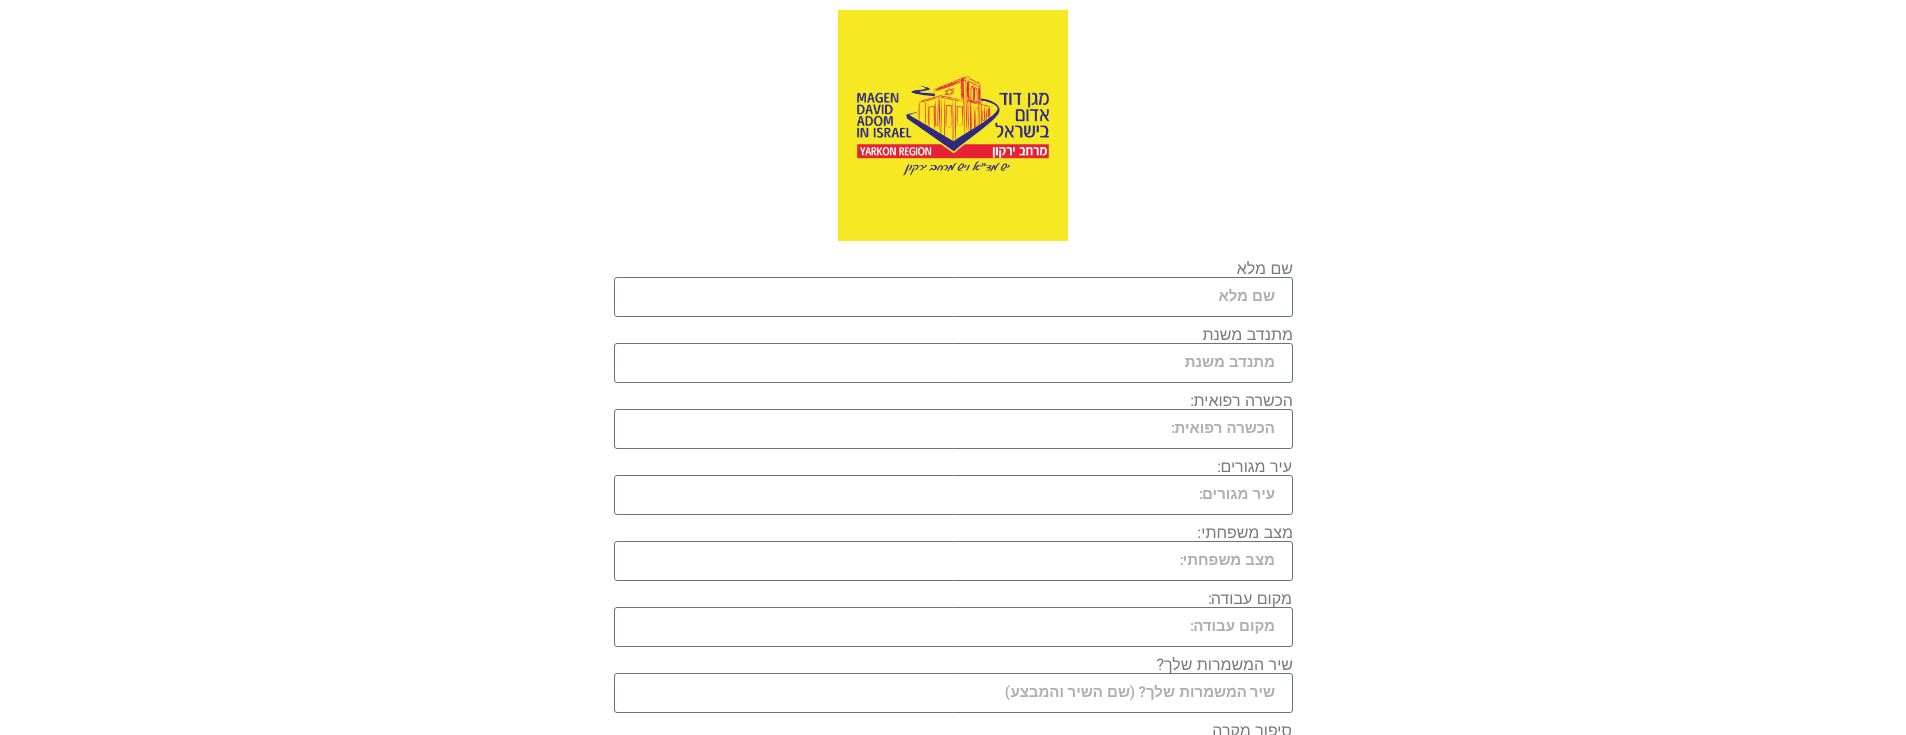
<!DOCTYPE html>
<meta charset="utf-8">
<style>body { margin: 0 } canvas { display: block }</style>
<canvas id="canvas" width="1906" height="735"></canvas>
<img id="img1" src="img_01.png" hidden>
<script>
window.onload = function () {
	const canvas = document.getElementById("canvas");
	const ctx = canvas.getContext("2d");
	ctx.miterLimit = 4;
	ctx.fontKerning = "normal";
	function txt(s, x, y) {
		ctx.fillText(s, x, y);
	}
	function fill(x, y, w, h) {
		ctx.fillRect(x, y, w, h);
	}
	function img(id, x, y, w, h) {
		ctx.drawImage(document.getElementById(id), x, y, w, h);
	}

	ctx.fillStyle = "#FFFFFF";
	fill(0, 0, 1906, 735);
	img("img1", 838, 10, 230, 231);
	ctx.beginPath();
	ctx.roundRect(614.5, 277.5, 678, 39, 2.5);
	ctx.strokeStyle = "#69727D";
	ctx.stroke();
	ctx.beginPath();
	ctx.roundRect(614.5, 343.5, 678, 39, 2.5);
	ctx.stroke();
	ctx.beginPath();
	ctx.roundRect(614.5, 409.5, 678, 39, 2.5);
	ctx.stroke();
	ctx.beginPath();
	ctx.roundRect(614.5, 475.5, 678, 39, 2.5);
	ctx.stroke();
	ctx.beginPath();
	ctx.roundRect(614.5, 541.5, 678, 39, 2.5);
	ctx.stroke();
	ctx.beginPath();
	ctx.roundRect(614.5, 607.5, 678, 39, 2.5);
	ctx.stroke();
	ctx.beginPath();
	ctx.roundRect(614.5, 673.5, 678, 39, 2.5);
	ctx.stroke();
	ctx.direction = "rtl";
	ctx.font = "16px Liberation Sans";
	ctx.fillStyle = "#7A7A7A";
	txt("שם מלא", 1293, 274);
	ctx.font = "bold 15px Liberation Sans";
	ctx.fillStyle = "#AFAFAF";
	txt("שם מלא", 1275, 301);
	ctx.font = "16px Liberation Sans";
	ctx.fillStyle = "#7A7A7A";
	txt("מתנדב משנת", 1293, 340);
	ctx.font = "bold 15px Liberation Sans";
	ctx.fillStyle = "#AFAFAF";
	txt("מתנדב משנת", 1275, 367);
	ctx.font = "16px Liberation Sans";
	ctx.fillStyle = "#7A7A7A";
	txt("הכשרה רפואית", 1293, 406);
	ctx.font = "16px Roboto";
	txt(":", 1194, 406);
	ctx.font = "bold 15px Liberation Sans";
	ctx.fillStyle = "#AFAFAF";
	txt("הכשרה רפואית", 1275, 433);
	ctx.font = "600 15px Roboto";
	txt(":", 1175, 433);
	ctx.font = "16px Liberation Sans";
	ctx.fillStyle = "#7A7A7A";
	txt("עיר מגורים", 1292, 472);
	ctx.font = "16px Roboto";
	txt(":", 1221, 472);
	ctx.font = "bold 15px Liberation Sans";
	ctx.fillStyle = "#AFAFAF";
	txt("עיר מגורים", 1275, 499);
	ctx.font = "600 15px Roboto";
	txt(":", 1203, 499);
	ctx.font = "16px Liberation Sans";
	ctx.fillStyle = "#7A7A7A";
	txt("מצב משפחתי", 1293, 538);
	ctx.font = "16px Roboto";
	txt(":", 1201, 538);
	ctx.font = "bold 15px Liberation Sans";
	ctx.fillStyle = "#AFAFAF";
	txt("מצב משפחתי", 1275, 565);
	ctx.font = "600 15px Roboto";
	txt(":", 1184, 565);
	ctx.font = "16px Liberation Sans";
	ctx.fillStyle = "#7A7A7A";
	txt("מקום עבודה", 1292, 604);
	ctx.font = "16px Roboto";
	txt(":", 1212, 604);
	ctx.font = "bold 15px Liberation Sans";
	ctx.fillStyle = "#AFAFAF";
	txt("מקום עבודה", 1275, 631);
	ctx.font = "600 15px Roboto";
	txt(":", 1194, 631);
	ctx.font = "16px Liberation Sans";
	ctx.fillStyle = "#7A7A7A";
	txt("שיר המשמרות שלך", 1293, 670);
	ctx.font = "16px Roboto";
	txt("?", 1164, 670);
	ctx.font = "bold 15px Liberation Sans";
	ctx.fillStyle = "#AFAFAF";
	txt("שיר", 1275, 697);
	txt("המשמרות", 1247, 697);
	txt("שלך", 1175, 697);
	ctx.font = "600 15px Roboto";
	txt("? (", 1146, 697);
	ctx.font = "bold 15px Liberation Sans";
	txt("שם", 1130, 697);
	txt("השיר", 1103, 697);
	txt("והמבצע", 1064, 697);
	ctx.font = "600 15px Roboto";
	txt(")", 1010, 697);
	ctx.font = "16px Liberation Sans";
	ctx.fillStyle = "#7A7A7A";
	txt("סיפור מקרה", 1292, 736);
};
</script>
